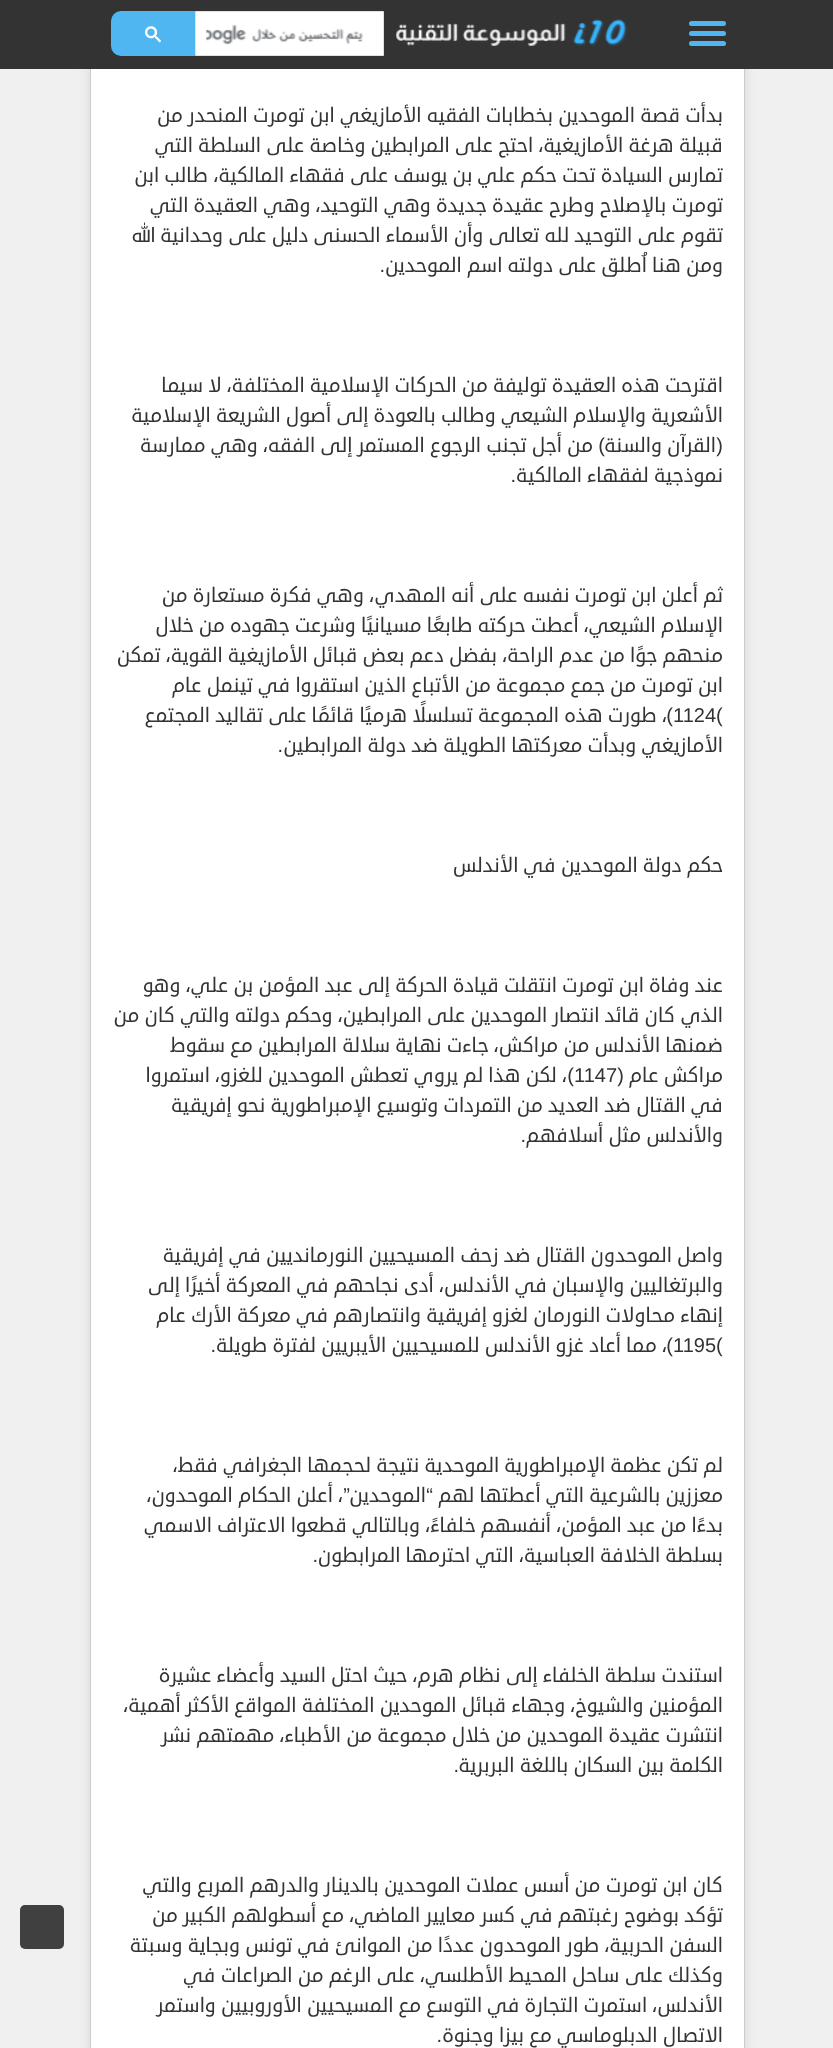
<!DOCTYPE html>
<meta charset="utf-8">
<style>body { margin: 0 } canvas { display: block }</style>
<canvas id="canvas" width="833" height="2048"></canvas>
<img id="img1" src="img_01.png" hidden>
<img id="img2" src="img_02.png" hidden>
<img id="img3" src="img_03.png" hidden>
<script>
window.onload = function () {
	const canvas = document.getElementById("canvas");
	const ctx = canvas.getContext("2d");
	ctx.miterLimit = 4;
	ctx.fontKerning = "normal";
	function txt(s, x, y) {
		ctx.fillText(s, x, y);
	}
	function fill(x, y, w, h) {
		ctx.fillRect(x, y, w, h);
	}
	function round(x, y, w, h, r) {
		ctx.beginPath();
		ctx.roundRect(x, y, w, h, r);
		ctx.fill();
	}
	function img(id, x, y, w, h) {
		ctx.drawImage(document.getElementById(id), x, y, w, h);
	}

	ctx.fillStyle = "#F0F0F0";
	fill(0, 0, 833, 2048);
	ctx.fillStyle = "rgba(0, 0, 0, 0.1)";
	ctx.filter = "blur(6px)";
	ctx.beginPath();
	ctx.roundRect(90, -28, 655, 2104, 10);
	ctx.fill();
	ctx.filter = "none";
	ctx.fillStyle = "#FFFFFF";
	fill(91, 69, 653, 1979);
	ctx.strokeStyle = "#CCCCCC";
	ctx.strokeRect(90.5, -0.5, 654, 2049);
	ctx.fillStyle = "#333333";
	fill(0, 0, 833, 69);
	ctx.fillStyle = "#50B6F2";
	round(689, 21, 37, 5, 2.5);
	round(689, 31, 37, 5, 2.5);
	round(689, 41, 37, 5, 2.5);
	img("img1", 395, 19, 233, 28);
	ctx.fillStyle = "#FFFFFF";
	ctx.beginPath();
	ctx.rect(195.5, 11.5, 188, 44);
	ctx.fill();
	ctx.strokeStyle = "#DFE1E5";
	ctx.stroke();
	img("img2", 206, 24, 158, 21);
	ctx.fillStyle = "#50B6F2";
	ctx.beginPath();
	ctx.roundRect(111, 11, 84, 45, [10, 0, 0, 10]);
	ctx.fill();
	img("img3", 145, 26, 16, 17);
	ctx.fillStyle = "#404040";
	round(20, 1905, 44, 44, 5);
	ctx.direction = "rtl";
	ctx.font = "20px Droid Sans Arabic";
	ctx.fillStyle = "#333333";
	txt("بدأت قصة الموحدين بخطابات الفقيه الأمازيغي ابن تومرت المنحدر من", 723, 122);
	txt("قبيلة هرغة الأمازيغية، احتج على المرابطين وخاصة على السلطة التي", 723, 152);
	txt("تمارس السيادة تحت حكم علي بن يوسف على فقهاء المالكية، طالب ابن", 723, 182);
	txt("تومرت بالإصلاح وطرح عقيدة جديدة وهي التوحيد، وهي العقيدة التي", 723, 212);
	txt("تقوم على التوحيد لله تعالى وأن الأسماء الحسنى دليل على وحدانية الله", 723, 242);
	txt("ومن هنا اُطلق على دولته اسم الموحدين", 723, 272);
	ctx.font = "20px Liberation Sans";
	txt(".", 385, 272);
	ctx.font = "20px Droid Sans Arabic";
	txt("اقترحت هذه العقيدة توليفة من الحركات الإسلامية المختلفة، لا سيما", 723, 392);
	txt("الأشعرية والإسلام الشيعي وطالب بالعودة إلى أصول الشريعة الإسلامية", 723, 422);
	ctx.font = "20px Liberation Sans";
	txt("(", 723, 452);
	ctx.font = "20px Droid Sans Arabic";
	txt("القرآن والسنة", 716, 452);
	ctx.font = "20px Liberation Sans";
	txt(")", 605, 452);
	ctx.font = "20px Droid Sans Arabic";
	txt("من أجل تجنب الرجوع المستمر إلى الفقه، وهي ممارسة", 593, 452);
	txt("نموذجية لفقهاء المالكية", 723, 482);
	ctx.font = "20px Liberation Sans";
	txt(".", 516, 482);
	ctx.font = "20px Droid Sans Arabic";
	txt("ثم أعلن ابن تومرت نفسه على أنه المهدي، وهي فكرة مستعارة من", 723, 602);
	txt("الإسلام الشيعي، أعطت حركته طابعًا مسيانيًا وشرعت جهوده من خلال", 723, 632);
	txt("منحهم جوًا من عدم الراحة، بفضل دعم بعض قبائل الأمازيغية القوية، تمكن", 723, 662);
	txt("ابن تومرت من جمع مجموعة من الأتباع الذين استقروا في تينمل عام", 723, 692);
	ctx.direction = "ltr";
	ctx.font = "20px Liberation Sans";
	txt("1124(", 673, 722);
	ctx.direction = "rtl";
	txt(")", 673, 722);
	ctx.font = "20px Droid Sans Arabic";
	txt("، طورت هذه المجموعة تسلسلًا هرميًا قائمًا على تقاليد المجتمع", 667, 722);
	txt("الأمازيغي وبدأت معركتها الطويلة ضد دولة المرابطين", 723, 752);
	ctx.font = "20px Liberation Sans";
	txt(".", 283, 752);
	ctx.font = "20px Droid Sans Arabic";
	txt("حكم دولة الموحدين في الأندلس", 723, 872);
	txt("عند وفاة ابن تومرت انتقلت قيادة الحركة إلى عبد المؤمن بن علي، وهو", 723, 992);
	txt("الذي كان قائد انتصار الموحدين على المرابطين، وحكم دولته والتي كان من", 723, 1022);
	txt("ضمنها الأندلس من مراكش، جاءت نهاية سلالة المرابطين مع سقوط", 723, 1052);
	txt("مراكش عام", 723, 1082);
	ctx.font = "20px Liberation Sans";
	txt("(", 624, 1082);
	ctx.direction = "ltr";
	txt("1147", 574, 1082);
	ctx.direction = "rtl";
	txt(")", 574, 1082);
	ctx.font = "20px Droid Sans Arabic";
	txt("، لكن هذا لم يروي تعطش الموحدين للغزو، استمروا", 567, 1082);
	txt("في القتال ضد العديد من التمردات وتوسيع الإمبراطورية نحو إفريقية", 723, 1112);
	txt("والأندلس مثل أسلافهم", 723, 1142);
	ctx.font = "20px Liberation Sans";
	txt(".", 526, 1142);
	ctx.font = "20px Droid Sans Arabic";
	txt("واصل الموحدون القتال ضد زحف المسيحيين النورمانديين في إفريقية", 723, 1262);
	txt("والبرتغاليين والإسبان في الأندلس، أدى نجاحهم في المعركة أخيرًا إلى", 723, 1292);
	txt("إنهاء محاولات النورمان لغزو إفريقية وانتصارهم في معركة الأرك عام", 723, 1322);
	ctx.direction = "ltr";
	ctx.font = "20px Liberation Sans";
	txt("1195(", 673, 1352);
	ctx.direction = "rtl";
	txt(")", 673, 1352);
	ctx.font = "20px Droid Sans Arabic";
	txt("، مما أعاد غزو الأندلس للمسيحيين الأيبريين لفترة طويلة", 667, 1352);
	ctx.font = "20px Liberation Sans";
	txt(".", 216, 1352);
	ctx.font = "20px Droid Sans Arabic";
	txt("لم تكن عظمة الإمبراطورية الموحدية نتيجة لحجمها الجغرافي فقط،", 723, 1472);
	txt("معززين بالشرعية التي أعطتها لهم", 723, 1502);
	ctx.font = "20px Liberation Sans";
	txt("“", 433, 1502);
	ctx.font = "20px Droid Sans Arabic";
	txt("الموحدين", 426, 1502);
	ctx.font = "20px Liberation Sans";
	txt("”", 350, 1502);
	ctx.font = "20px Droid Sans Arabic";
	txt("، أعلن الحكام الموحدون،", 343, 1502);
	txt("بدءًا من عبد المؤمن، أنفسهم خلفاءً، وبالتالي قطعوا الاعتراف الاسمي", 723, 1532);
	txt("بسلطة الخلافة العباسية، التي احترمها المرابطون", 723, 1562);
	ctx.font = "20px Liberation Sans";
	txt(".", 318, 1562);
	ctx.font = "20px Droid Sans Arabic";
	txt("استندت سلطة الخلفاء إلى نظام هرم، حيث احتل السيد وأعضاء عشيرة", 723, 1682);
	txt("المؤمنين والشيوخ، وجهاء قبائل الموحدين المختلفة المواقع الأكثر أهمية،", 723, 1712);
	txt("انتشرت عقيدة الموحدين من خلال مجموعة من الأطباء، مهمتهم نشر", 723, 1742);
	txt("الكلمة بين السكان باللغة البربرية", 723, 1772);
	ctx.font = "20px Liberation Sans";
	txt(".", 459, 1772);
	ctx.font = "20px Droid Sans Arabic";
	txt("كان ابن تومرت من أسس عملات الموحدين بالدينار والدرهم المربع والتي", 723, 1892);
	txt("تؤكد بوضوح رغبتهم في كسر معايير الماضي، مع أسطولهم الكبير من", 723, 1922);
	txt("السفن الحربية، طور الموحدون عددًا من الموانئ في تونس وبجاية وسبتة", 723, 1952);
	txt("وكذلك على ساحل المحيط الأطلسي، على الرغم من الصراعات في", 723, 1982);
	txt("الأندلس، استمرت التجارة في التوسع مع المسيحيين الأوروبيين واستمر", 723, 2012);
	txt("الاتصال الدبلوماسي مع بيزا وجنوة", 723, 2042);
	ctx.font = "20px Liberation Sans";
	txt(".", 442, 2042);
};
</script>
